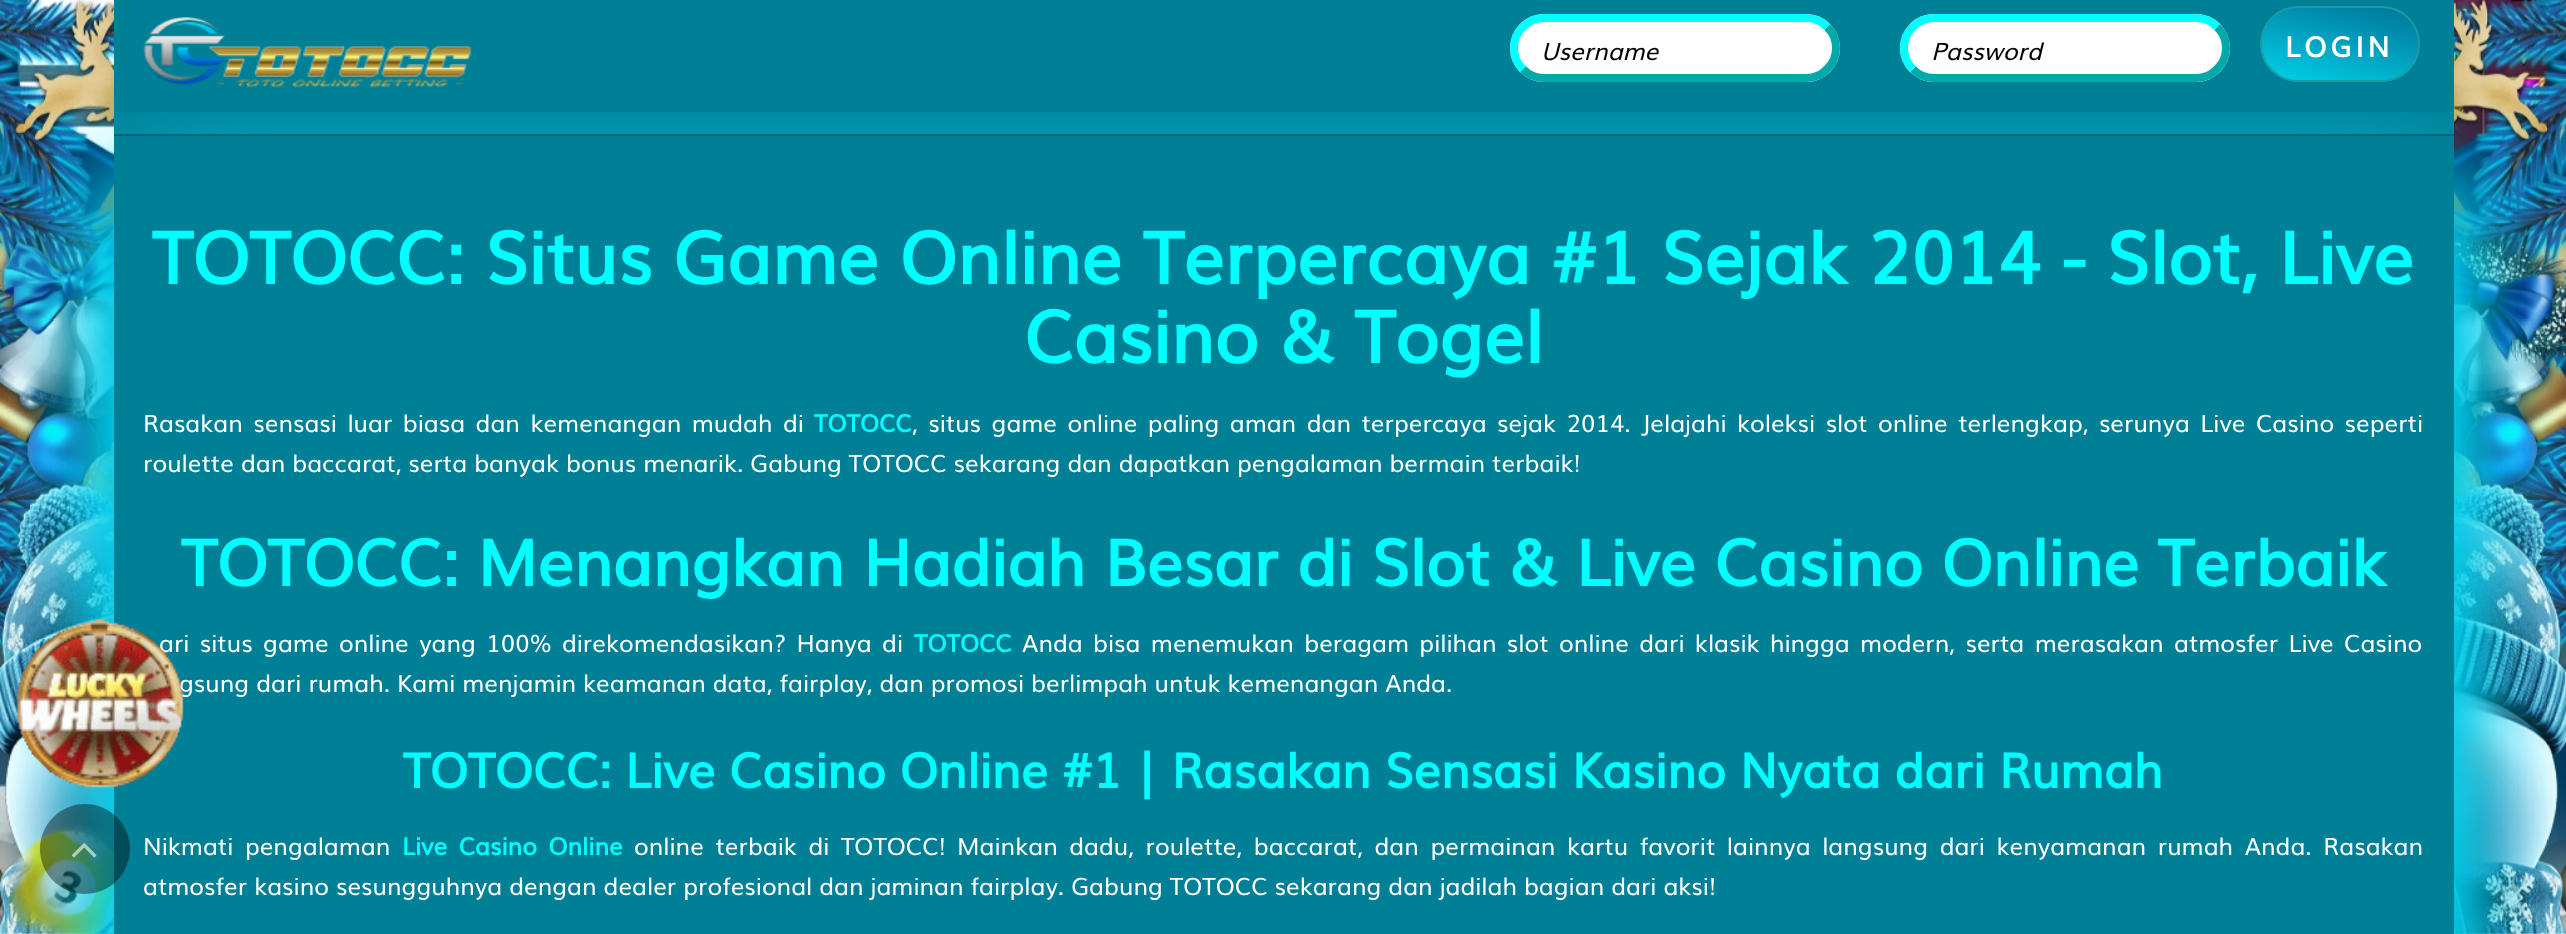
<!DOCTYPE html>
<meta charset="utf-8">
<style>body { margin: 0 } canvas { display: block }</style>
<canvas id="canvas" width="2566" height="934"></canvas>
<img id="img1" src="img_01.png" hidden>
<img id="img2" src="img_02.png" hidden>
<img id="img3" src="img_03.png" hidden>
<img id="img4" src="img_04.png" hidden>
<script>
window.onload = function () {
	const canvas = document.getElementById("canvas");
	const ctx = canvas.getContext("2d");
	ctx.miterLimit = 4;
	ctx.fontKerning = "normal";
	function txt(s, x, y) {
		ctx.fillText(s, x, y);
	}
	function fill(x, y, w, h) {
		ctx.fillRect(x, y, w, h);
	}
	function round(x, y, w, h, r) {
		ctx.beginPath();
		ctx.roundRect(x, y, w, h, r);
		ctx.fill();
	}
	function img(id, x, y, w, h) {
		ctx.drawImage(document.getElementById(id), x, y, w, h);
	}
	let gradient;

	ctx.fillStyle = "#FFFFFF";
	fill(0, 0, 2566, 934);
	img("img1", 0, 0, 2566, 934);
	ctx.fillStyle = "#008096";
	fill(114, 112, 2340, 22);
	ctx.fillStyle = "#00A4C1";
	ctx.filter = "blur(32px)";
	ctx.beginPath();
	ctx.rect(120, 200, 2328, 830);
	ctx.fill();
	ctx.filter = "none";
	ctx.fillStyle = "#00E1FF";
	ctx.filter = "blur(62px)";
	ctx.beginPath();
	ctx.rect(118, 202, 2332, 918);
	ctx.fill();
	ctx.filter = "none";
	ctx.fillStyle = "#008096";
	fill(114, 136, 2340, 798);
	ctx.fillStyle = "#005564";
	fill(114, 134, 2340, 2);
	ctx.save();
	ctx.beginPath();
	ctx.moveTo(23, 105);
	ctx.lineTo(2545, 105);
	ctx.lineTo(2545, 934);
	ctx.lineTo(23, 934);
	ctx.closePath();
	ctx.moveTo(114, 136);
	ctx.lineTo(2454, 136);
	ctx.lineTo(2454, 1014);
	ctx.lineTo(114, 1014);
	ctx.closePath();
	ctx.clip("evenodd");
	ctx.fillStyle = "#00A4C1";
	ctx.filter = "blur(32px)";
	ctx.beginPath();
	ctx.rect(120, 202, 2328, 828);
	ctx.fill();
	ctx.filter = "none";
	ctx.restore();
	ctx.save();
	ctx.beginPath();
	ctx.moveTo(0, 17);
	ctx.lineTo(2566, 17);
	ctx.lineTo(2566, 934);
	ctx.lineTo(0, 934);
	ctx.closePath();
	ctx.moveTo(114, 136);
	ctx.lineTo(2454, 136);
	ctx.lineTo(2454, 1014);
	ctx.lineTo(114, 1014);
	ctx.closePath();
	ctx.clip("evenodd");
	ctx.fillStyle = "#00E1FF";
	ctx.filter = "blur(62px)";
	ctx.beginPath();
	ctx.rect(118, 204, 2332, 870);
	ctx.fill();
	ctx.filter = "none";
	ctx.restore();
	ctx.fillStyle = "#008096";
	fill(114, 0, 2340, 112);
	img("img2", 143, 17, 329, 71);
	ctx.fillStyle = "#FFFFFF";
	round(1510, 14, 330, 68, 34);
	ctx.beginPath();
	ctx.moveTo(1827, 27);
	ctx.bezierCurveTo(1833, 32.5, 1836, 40, 1836, 48);
	ctx.bezierCurveTo(1836, 56, 1833, 63.5, 1827, 69);
	ctx.bezierCurveTo(1821.5, 75, 1814, 78, 1806, 78);
	ctx.lineTo(1544, 78);
	ctx.bezierCurveTo(1536, 78, 1528.5, 75, 1523, 69);
	ctx.strokeStyle = "#00AAAA";
	ctx.lineWidth = 8;
	ctx.stroke();
	ctx.beginPath();
	ctx.moveTo(1523, 69);
	ctx.bezierCurveTo(1517, 63.5, 1514, 56, 1514, 48);
	ctx.bezierCurveTo(1514, 40, 1517, 32.5, 1523, 27);
	ctx.bezierCurveTo(1528.5, 21, 1536, 18, 1544, 18);
	ctx.lineTo(1806, 18);
	ctx.bezierCurveTo(1814, 18, 1821.5, 21, 1827, 27);
	ctx.strokeStyle = "#00FFFF";
	ctx.stroke();
	round(1900, 14, 330, 68, 34);
	ctx.beginPath();
	ctx.moveTo(2217, 27);
	ctx.bezierCurveTo(2223, 32.5, 2226, 40, 2226, 48);
	ctx.bezierCurveTo(2226, 56, 2223, 63.5, 2217, 69);
	ctx.bezierCurveTo(2211.5, 75, 2204, 78, 2196, 78);
	ctx.lineTo(1934, 78);
	ctx.bezierCurveTo(1926, 78, 1918.5, 75, 1913, 69);
	ctx.strokeStyle = "#00AAAA";
	ctx.stroke();
	ctx.beginPath();
	ctx.moveTo(1913, 69);
	ctx.bezierCurveTo(1907, 63.5, 1904, 56, 1904, 48);
	ctx.bezierCurveTo(1904, 40, 1907, 32.5, 1913, 27);
	ctx.bezierCurveTo(1918.5, 21, 1926, 18, 1934, 18);
	ctx.lineTo(2196, 18);
	ctx.bezierCurveTo(2204, 18, 2211.5, 21, 2217, 27);
	ctx.strokeStyle = "#00FFFF";
	ctx.stroke();
	ctx.save();
	ctx.beginPath();
	ctx.roundRect(2260, 6, 160, 76, 38);
	ctx.clip();
	gradient = ctx.createLinearGradient(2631, -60, 2517, 364);
	gradient.addColorStop(0.11, "#003C4E");
	gradient.addColorStop(0.21, "#006781");
	gradient.addColorStop(0.33, "#0087A9");
	gradient.addColorStop(0.6, "#00EEFF");
	gradient.addColorStop(0.73, "#0087A9");
	gradient.addColorStop(0.85, "#006781");
	gradient.addColorStop(1, "#003C4E");
	ctx.fillStyle = gradient;
	ctx.beginPath();
	ctx.roundRect(2262, 8, 158, 74, [0, 0, 38, 0]);
	ctx.fill();
	ctx.restore();
	ctx.beginPath();
	ctx.roundRect(2261, 7, 158, 74, 37);
	ctx.strokeStyle = "#1B9BA6";
	ctx.lineWidth = 2;
	ctx.stroke();
	ctx.fillStyle = "rgba(0, 0, 0, 0.4)";
	ctx.beginPath();
	ctx.arc(85, 849, 45, 0, Math.PI * 2);
	ctx.fill();
	img("img3", 72, 843, 25, 15);
	ctx.font = "italic 24px Muli";
	ctx.fillStyle = "#000000";
	txt("Username", 1541, 60);
	txt("Password", 1931, 60);
	ctx.letterSpacing = "4px";
	ctx.font = "bold 28px Muli";
	ctx.fillStyle = "#FFFFFF";
	txt("LOGIN", 2285, 57);
	ctx.letterSpacing = "0px";
	ctx.font = "bold 72px Muli";
	ctx.fillStyle = "#00FFFF";
	txt("TOTOCC: Situs Game Online Terpercaya #1 Sejak 2014 - Slot, Live", 152, 284);
	txt("Casino & Togel", 1024, 363);
	ctx.wordSpacing = "3.5px";
	ctx.font = "24px Muli";
	ctx.fillStyle = "#FFFFFF";
	txt("Rasakan sensasi luar biasa dan kemenangan mudah di", 143, 432);
	ctx.wordSpacing = "0px";
	ctx.font = "bold 24px Muli";
	ctx.fillStyle = "#00FFFF";
	txt("TOTOCC", 814, 432);
	ctx.wordSpacing = "3.5px";
	ctx.font = "24px Muli";
	ctx.fillStyle = "#FFFFFF";
	txt(", situs game online paling aman dan terpercaya sejak 2014. Jelajahi koleksi slot online terlengkap, serunya Live Casino seperti", 912, 432);
	ctx.wordSpacing = "0px";
	txt("roulette dan baccarat, serta banyak bonus menarik. Gabung TOTOCC sekarang dan dapatkan pengalaman bermain terbaik!", 143, 472);
	ctx.font = "bold 64px Muli";
	ctx.fillStyle = "#00FFFF";
	txt("TOTOCC: Menangkan Hadiah Besar di Slot & Live Casino Online Terbaik", 181, 586);
	ctx.wordSpacing = "3.4px";
	ctx.font = "24px Muli";
	ctx.fillStyle = "#FFFFFF";
	txt("ari situs game online yang 100% direkomendasikan? Hanya di", 159, 652);
	ctx.wordSpacing = "0px";
	ctx.font = "bold 24px Muli";
	ctx.fillStyle = "#00FFFF";
	txt("TOTOCC", 914, 652);
	ctx.wordSpacing = "3.4px";
	ctx.font = "24px Muli";
	ctx.fillStyle = "#FFFFFF";
	txt("Anda bisa menemukan beragam pilihan slot online dari klasik hingga modern, serta merasakan atmosfer Live Casino", 1022, 652);
	ctx.wordSpacing = "0px";
	txt("gsung dari rumah. Kami menjamin keamanan data, fairplay, dan promosi berlimpah untuk kemenangan Anda.", 179, 692);
	img("img4", 16, 619, 168, 169);
	ctx.font = "bold 48px Muli";
	ctx.fillStyle = "#00FFFF";
	txt("TOTOCC: Live Casino Online #1 | Rasakan Sensasi Kasino Nyata dari Rumah", 403, 788);
	ctx.wordSpacing = "4.6px";
	ctx.font = "24px Muli";
	ctx.fillStyle = "#FFFFFF";
	txt("Nikmati pengalaman", 143, 855);
	ctx.font = "bold 24px Muli";
	ctx.fillStyle = "#00FFFF";
	txt("Live Casino Online", 402, 855);
	ctx.font = "24px Muli";
	ctx.fillStyle = "#FFFFFF";
	txt("online terbaik di TOTOCC! Mainkan dadu, roulette, baccarat, dan permainan kartu favorit lainnya langsung dari kenyamanan rumah Anda. Rasakan", 634, 855);
	ctx.wordSpacing = "0px";
	txt("atmosfer kasino sesungguhnya dengan dealer profesional dan jaminan fairplay. Gabung TOTOCC sekarang dan jadilah bagian dari aksi!", 143, 895);
};
</script>
